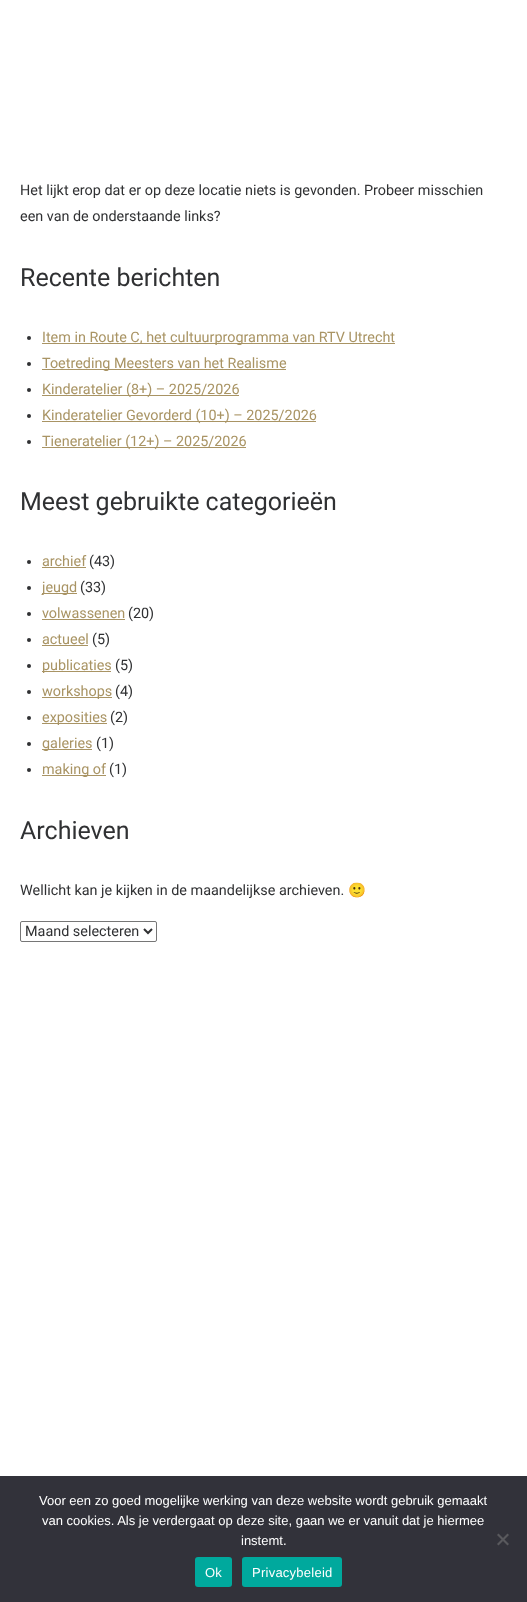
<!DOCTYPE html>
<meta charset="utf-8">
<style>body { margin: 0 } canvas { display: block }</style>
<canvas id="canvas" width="527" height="1602"></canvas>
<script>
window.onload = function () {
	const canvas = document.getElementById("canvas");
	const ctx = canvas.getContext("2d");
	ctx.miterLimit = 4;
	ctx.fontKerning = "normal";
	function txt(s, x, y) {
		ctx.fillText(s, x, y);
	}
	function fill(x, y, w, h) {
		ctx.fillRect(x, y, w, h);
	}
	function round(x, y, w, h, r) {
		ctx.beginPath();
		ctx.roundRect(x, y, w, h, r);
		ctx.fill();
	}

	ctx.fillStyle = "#FFFFFF";
	fill(0, 0, 527, 1602);
	ctx.fillStyle = "#303133";
	ctx.beginPath();
	ctx.arc(29, 338, 2, 0, Math.PI * 2);
	ctx.fill();
	ctx.fillStyle = "#A99464";
	fill(42, 343, 353, 1);
	ctx.fillStyle = "#303133";
	ctx.beginPath();
	ctx.arc(29, 364, 2, 0, Math.PI * 2);
	ctx.fill();
	ctx.fillStyle = "#A99464";
	fill(42, 369, 244, 1);
	ctx.fillStyle = "#303133";
	ctx.beginPath();
	ctx.arc(29, 390, 2, 0, Math.PI * 2);
	ctx.fill();
	ctx.fillStyle = "#A99464";
	fill(42, 395, 197, 1);
	ctx.fillStyle = "#303133";
	ctx.beginPath();
	ctx.arc(29, 416, 2, 0, Math.PI * 2);
	ctx.fill();
	ctx.fillStyle = "#A99464";
	fill(42, 421, 274, 1);
	ctx.fillStyle = "#303133";
	ctx.beginPath();
	ctx.arc(29, 442, 2, 0, Math.PI * 2);
	ctx.fill();
	ctx.fillStyle = "#A99464";
	fill(42, 447, 204, 1);
	ctx.fillStyle = "#303133";
	ctx.beginPath();
	ctx.arc(29, 562, 2, 0, Math.PI * 2);
	ctx.fill();
	ctx.fillStyle = "#A99464";
	fill(42, 567, 44, 1);
	ctx.fillStyle = "#303133";
	ctx.beginPath();
	ctx.arc(29, 588, 2, 0, Math.PI * 2);
	ctx.fill();
	ctx.fillStyle = "#A99464";
	fill(42, 593, 35, 1);
	ctx.fillStyle = "#303133";
	ctx.beginPath();
	ctx.arc(29, 614, 2, 0, Math.PI * 2);
	ctx.fill();
	ctx.fillStyle = "#A99464";
	fill(42, 619, 83, 1);
	ctx.fillStyle = "#303133";
	ctx.beginPath();
	ctx.arc(29, 640, 2, 0, Math.PI * 2);
	ctx.fill();
	ctx.fillStyle = "#A99464";
	fill(42, 645, 46, 1);
	ctx.fillStyle = "#303133";
	ctx.beginPath();
	ctx.arc(29, 666, 2, 0, Math.PI * 2);
	ctx.fill();
	ctx.fillStyle = "#A99464";
	fill(42, 671, 69, 1);
	ctx.fillStyle = "#303133";
	ctx.beginPath();
	ctx.arc(29, 692, 2, 0, Math.PI * 2);
	ctx.fill();
	ctx.fillStyle = "#A99464";
	fill(42, 697, 70, 1);
	ctx.fillStyle = "#303133";
	ctx.beginPath();
	ctx.arc(29, 718, 2, 0, Math.PI * 2);
	ctx.fill();
	ctx.fillStyle = "#A99464";
	fill(42, 723, 65, 1);
	ctx.fillStyle = "#303133";
	ctx.beginPath();
	ctx.arc(29, 744, 2, 0, Math.PI * 2);
	ctx.fill();
	ctx.fillStyle = "#A99464";
	fill(42, 749, 50, 1);
	ctx.fillStyle = "#303133";
	ctx.beginPath();
	ctx.arc(29, 770, 2, 0, Math.PI * 2);
	ctx.fill();
	ctx.fillStyle = "#A99464";
	fill(42, 775, 64, 1);
	ctx.beginPath();
	ctx.roundRect(20.5, 921.5, 136, 20, 1.5);
	ctx.strokeStyle = "#767676";
	ctx.stroke();
	ctx.beginPath();
	ctx.moveTo(144, 929);
	ctx.lineTo(148, 933);
	ctx.lineTo(152, 929);
	ctx.strokeStyle = "#303133";
	ctx.lineWidth = 2;
	ctx.stroke();
	ctx.fillStyle = "#32323A";
	fill(0, 1476, 527, 126);
	ctx.fillStyle = "#59595D";
	ctx.beginPath();
	ctx.moveTo(507.5, 1533.5);
	ctx.lineTo(509, 1535);
	ctx.lineTo(498.5, 1545.5);
	ctx.lineTo(497, 1544);
	ctx.closePath();
	ctx.fill();
	ctx.beginPath();
	ctx.moveTo(497, 1535);
	ctx.lineTo(498.5, 1533.5);
	ctx.lineTo(509, 1544);
	ctx.lineTo(507.5, 1545.5);
	ctx.closePath();
	ctx.fill();
	ctx.fillStyle = "#00A99D";
	round(195, 1557, 37, 30, 3);
	round(242, 1557, 100, 30, 3);
	ctx.font = "14.4px Roboto";
	ctx.fillStyle = "#303133";
	txt("Het lijkt erop dat er op deze locatie niets is gevonden. Probeer misschien", 20, 195);
	txt("een van de onderstaande links?", 20, 221);
	ctx.font = "25px Roboto";
	txt("Recente berichten", 20, 286);
	ctx.font = "14.4px Roboto";
	ctx.fillStyle = "#A99464";
	txt("Item in Route C, het cultuurprogramma van RTV Utrecht", 42, 342);
	txt("Toetreding Meesters van het Realisme", 42, 368);
	txt("Kinderatelier (8+) – 2025/2026", 42, 394);
	txt("Kinderatelier Gevorderd (10+) – 2025/2026", 42, 420);
	txt("Tieneratelier (12+) – 2025/2026", 42, 446);
	ctx.font = "25px Roboto";
	ctx.fillStyle = "#303133";
	txt("Meest gebruikte categorieën", 20, 510);
	ctx.font = "14.4px Roboto";
	ctx.fillStyle = "#A99464";
	txt("archief", 42, 566);
	ctx.fillStyle = "#303133";
	txt("(43)", 89, 566);
	ctx.fillStyle = "#A99464";
	txt("jeugd", 42, 592);
	ctx.fillStyle = "#303133";
	txt("(33)", 80, 592);
	ctx.fillStyle = "#A99464";
	txt("volwassenen", 42, 618);
	ctx.fillStyle = "#303133";
	txt("(20)", 128, 618);
	ctx.fillStyle = "#A99464";
	txt("actueel", 42, 644);
	ctx.fillStyle = "#303133";
	txt("(5)", 92, 644);
	ctx.fillStyle = "#A99464";
	txt("publicaties", 42, 670);
	ctx.fillStyle = "#303133";
	txt("(5)", 115, 670);
	ctx.fillStyle = "#A99464";
	txt("workshops", 42, 696);
	ctx.fillStyle = "#303133";
	txt("(4)", 115, 696);
	ctx.fillStyle = "#A99464";
	txt("exposities", 42, 722);
	ctx.fillStyle = "#303133";
	txt("(2)", 110, 722);
	ctx.fillStyle = "#A99464";
	txt("galeries", 42, 748);
	ctx.fillStyle = "#303133";
	txt("(1)", 96, 748);
	ctx.fillStyle = "#A99464";
	txt("making of", 42, 774);
	ctx.fillStyle = "#303133";
	txt("(1)", 109, 774);
	ctx.font = "25px Roboto";
	txt("Archieven", 20, 839);
	ctx.font = "14.4px Roboto";
	txt("Wellicht kan je kijken in de maandelijkse archieven.", 20, 895);
	ctx.font = "14.4px Noto Color Emoji";
	txt("🙂", 348, 895);
	ctx.font = "14.4px Roboto";
	txt("Maand selecteren", 25, 936);
	ctx.font = "13px Liberation Sans";
	ctx.fillStyle = "#FFFFFF";
	txt("Voor een zo goed mogelijke werking van deze website wordt gebruik gemaakt", 39, 1505);
	txt("van cookies. Als je verdergaat op deze site, gaan we er vanuit dat je hiermee", 42, 1525);
	txt("instemt.", 241, 1545);
	ctx.letterSpacing = "0.25px";
	txt("Ok", 205, 1577);
	txt("Privacybeleid", 252, 1577);
};
</script>
